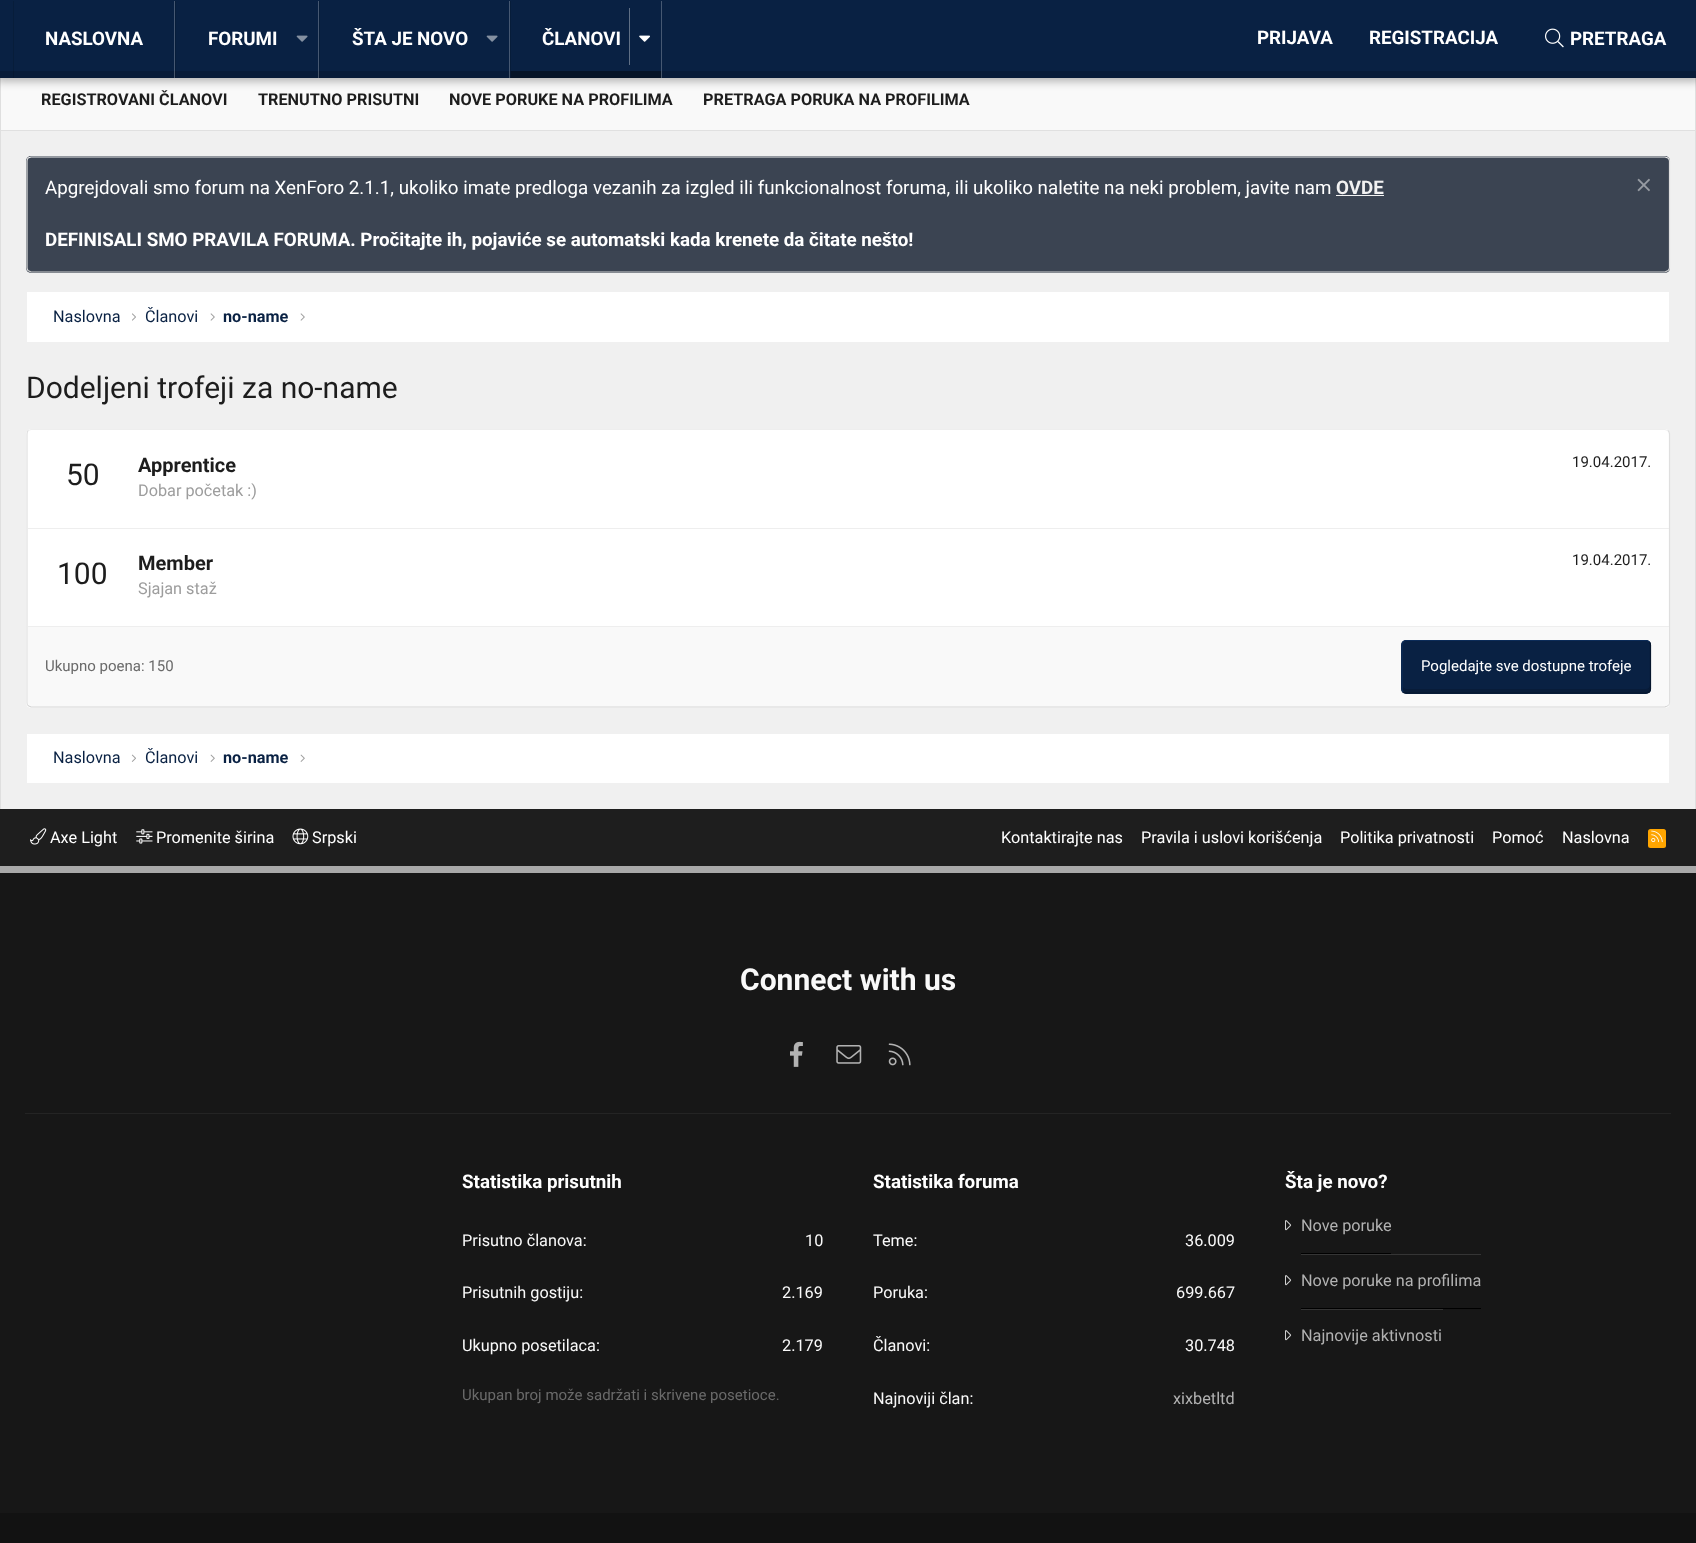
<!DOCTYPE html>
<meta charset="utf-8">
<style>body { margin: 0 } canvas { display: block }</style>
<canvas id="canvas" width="1696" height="1543"></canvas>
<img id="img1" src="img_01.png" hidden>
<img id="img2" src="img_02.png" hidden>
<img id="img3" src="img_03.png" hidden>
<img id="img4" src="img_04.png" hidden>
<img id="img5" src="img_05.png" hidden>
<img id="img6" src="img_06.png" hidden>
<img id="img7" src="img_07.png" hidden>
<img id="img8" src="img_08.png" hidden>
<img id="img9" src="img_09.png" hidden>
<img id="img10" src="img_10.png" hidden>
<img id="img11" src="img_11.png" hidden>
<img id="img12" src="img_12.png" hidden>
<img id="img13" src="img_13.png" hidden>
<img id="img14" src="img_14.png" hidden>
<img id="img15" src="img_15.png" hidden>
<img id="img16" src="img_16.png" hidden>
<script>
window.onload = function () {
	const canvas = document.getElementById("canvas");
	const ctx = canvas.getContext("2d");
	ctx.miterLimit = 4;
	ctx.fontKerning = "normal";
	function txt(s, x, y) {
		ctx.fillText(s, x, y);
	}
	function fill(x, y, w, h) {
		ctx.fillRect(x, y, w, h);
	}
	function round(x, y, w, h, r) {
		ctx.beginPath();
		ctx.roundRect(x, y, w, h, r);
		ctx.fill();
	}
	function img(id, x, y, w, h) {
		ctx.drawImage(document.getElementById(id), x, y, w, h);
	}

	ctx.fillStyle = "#F9F9F9";
	fill(0, 0, 1696, 1543);
	ctx.fillStyle = "#DFDFDF";
	fill(1695, 70, 1, 739);
	ctx.fillStyle = "#E0E0E0";
	fill(0, 130, 1696, 1);
	ctx.fillStyle = "#DFDFDF";
	fill(0, 70, 1, 739);
	ctx.fillStyle = "rgba(0, 0, 0, 0.3)";
	ctx.filter = "blur(5px)";
	ctx.beginPath();
	ctx.rect(-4, -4, 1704, 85);
	ctx.fill();
	ctx.filter = "none";
	ctx.fillStyle = "#092143";
	fill(0, 0, 1696, 71);
	ctx.fillStyle = "#081C39";
	fill(0, 71, 1696, 7);
	ctx.fillStyle = "rgba(255, 255, 255, 0.25)";
	fill(174, 1, 1, 77);
	ctx.fillStyle = "rgba(0, 0, 0, 0.12)";
	fill(13, 1, 1, 77);
	ctx.fillStyle = "rgba(255, 255, 255, 0.25)";
	fill(318, 1, 1, 77);
	ctx.fillStyle = "rgba(0, 0, 0, 0.12)";
	fill(175, 1, 1, 77);
	img("img1", 296, 35, 12, 7);
	ctx.fillStyle = "rgba(255, 255, 255, 0.25)";
	fill(509, 1, 1, 77);
	ctx.fillStyle = "rgba(0, 0, 0, 0.12)";
	fill(319, 1, 1, 77);
	img("img1", 486, 35, 12, 7);
	ctx.fillStyle = "rgba(255, 255, 255, 0.25)";
	fill(661, 1, 1, 77);
	ctx.fillStyle = "rgba(0, 0, 0, 0.12)";
	fill(510, 1, 1, 77);
	ctx.fillStyle = "#061428";
	fill(511, 71, 150, 7);
	ctx.fillStyle = "#5F6F85";
	fill(629, 8, 1, 57);
	img("img2", 639, 35, 11, 7);
	img("img3", 1545, 28, 19, 20);
	ctx.fillStyle = "#F0F0F0";
	fill(1, 131, 1694, 678);
	ctx.fillStyle = "#3B4452";
	round(26, 156, 1644, 117, 5);
	ctx.beginPath();
	ctx.moveTo(28, 158);
	ctx.lineTo(31, 157);
	ctx.lineTo(1665, 157);
	ctx.lineTo(1668, 158);
	ctx.strokeStyle = "#EEEEEE";
	ctx.lineWidth = 1.2;
	ctx.stroke();
	ctx.beginPath();
	ctx.moveTo(1668, 158);
	ctx.bezierCurveTo(1669, 159, 1669.5, 160, 1669.5, 161);
	ctx.lineTo(1669.5, 267.5);
	ctx.bezierCurveTo(1669.5, 268.5, 1669, 270, 1668, 270.5);
	ctx.strokeStyle = "#DFDFDF";
	ctx.stroke();
	ctx.beginPath();
	ctx.moveTo(1668, 270.5);
	ctx.lineTo(1665, 272);
	ctx.lineTo(31, 272);
	ctx.lineTo(28, 270.5);
	ctx.strokeStyle = "#D2D2D2";
	ctx.stroke();
	ctx.beginPath();
	ctx.moveTo(28, 270.5);
	ctx.bezierCurveTo(27.5, 270, 27, 268.5, 27, 267.5);
	ctx.lineTo(27, 161);
	ctx.bezierCurveTo(27, 160, 27.5, 159, 28, 158);
	ctx.strokeStyle = "#DFDFDF";
	ctx.stroke();
	ctx.fillStyle = "#F2F2F2";
	fill(1336, 195, 48, 1);
	img("img4", 1637, 178, 13, 14);
	ctx.fillStyle = "#FFFFFF";
	fill(27, 292, 1642, 50);
	img("img5", 132, 313, 4, 8);
	img("img6", 210, 313, 5, 8);
	img("img6", 300, 313, 5, 8);
	round(26, 429, 1644, 279, 5);
	ctx.beginPath();
	ctx.moveTo(28, 430.5);
	ctx.lineTo(31, 429.5);
	ctx.lineTo(1665, 429.5);
	ctx.lineTo(1668, 430.5);
	ctx.strokeStyle = "#EEEEEE";
	ctx.stroke();
	ctx.beginPath();
	ctx.moveTo(1668, 430.5);
	ctx.bezierCurveTo(1669, 431.5, 1669.5, 432.5, 1669.5, 434);
	ctx.lineTo(1669.5, 702.5);
	ctx.bezierCurveTo(1669.5, 703.5, 1669, 705, 1668, 705.5);
	ctx.strokeStyle = "#DFDFDF";
	ctx.stroke();
	ctx.beginPath();
	ctx.moveTo(1668, 705.5);
	ctx.lineTo(1665, 707);
	ctx.lineTo(31, 707);
	ctx.lineTo(28, 705.5);
	ctx.strokeStyle = "#D2D2D2";
	ctx.stroke();
	ctx.beginPath();
	ctx.moveTo(28, 705.5);
	ctx.bezierCurveTo(27.5, 705, 27, 703.5, 27, 702.5);
	ctx.lineTo(27, 434);
	ctx.bezierCurveTo(27, 432.5, 27.5, 431.5, 28, 430.5);
	ctx.strokeStyle = "#DFDFDF";
	ctx.stroke();
	ctx.fillStyle = "#EEEEEE";
	fill(28, 528, 1641, 1);
	ctx.fillStyle = "#F9F9F9";
	ctx.beginPath();
	ctx.roundRect(28, 626, 1641, 80, [0, 0, 4, 4]);
	ctx.fill();
	ctx.fillStyle = "#EEEEEE";
	fill(28, 626, 1641, 1);
	ctx.fillStyle = "#092143";
	round(1401, 640, 250, 54, 5);
	ctx.fillStyle = "#081C39";
	ctx.beginPath();
	ctx.moveTo(1403, 687);
	ctx.lineTo(1403, 689);
	ctx.bezierCurveTo(1403, 691, 1405, 693, 1407, 693);
	ctx.lineTo(1646, 693);
	ctx.bezierCurveTo(1648, 693, 1650, 691, 1650, 689);
	ctx.lineTo(1650, 685);
	ctx.bezierCurveTo(1650, 687, 1648, 689, 1646, 689);
	ctx.lineTo(1406, 689);
	ctx.bezierCurveTo(1405, 689, 1404, 688, 1403, 687);
	ctx.closePath();
	ctx.fill();
	ctx.beginPath();
	ctx.moveTo(1649.5, 642);
	ctx.bezierCurveTo(1650, 642.5, 1650.5, 644, 1650.5, 645);
	ctx.lineTo(1650.5, 689);
	ctx.bezierCurveTo(1650.5, 690, 1650, 691, 1649.5, 692);
	ctx.bezierCurveTo(1648.5, 692.5, 1647.5, 693, 1646, 693);
	ctx.lineTo(1406, 693);
	ctx.bezierCurveTo(1405, 693, 1404, 692.5, 1403, 692);
	ctx.strokeStyle = "#06162D";
	ctx.stroke();
	ctx.beginPath();
	ctx.moveTo(1403, 692);
	ctx.bezierCurveTo(1402.5, 691, 1402, 690, 1402, 689);
	ctx.lineTo(1402, 645);
	ctx.bezierCurveTo(1402, 644, 1402.5, 642.5, 1403, 642);
	ctx.bezierCurveTo(1404, 641, 1405, 640.5, 1406, 640.5);
	ctx.lineTo(1646, 640.5);
	ctx.bezierCurveTo(1647.5, 640.5, 1648.5, 641, 1649.5, 642);
	ctx.strokeStyle = "#0C2C59";
	ctx.stroke();
	ctx.fillStyle = "#FFFFFF";
	fill(27, 734, 1642, 49);
	img("img7", 131, 754, 5, 8);
	img("img8", 210, 754, 5, 8);
	img("img8", 300, 754, 5, 8);
	ctx.fillStyle = "#1E1E1E";
	fill(0, 809, 1696, 57);
	img("img9", 30, 828, 17, 17);
	img("img10", 136, 829, 17, 15);
	img("img11", 292, 828, 17, 17);
	ctx.fillStyle = "#FFA500";
	round(1648, 829, 18, 19, 2.5);
	img("img12", 1651, 830, 12, 13);
	ctx.fillStyle = "#171717";
	fill(0, 873, 1696, 640);
	ctx.fillStyle = "#A9A9A9";
	fill(0, 866, 1696, 7);
	ctx.fillStyle = "#242424";
	fill(25, 1113, 1646, 1);
	img("img13", 790, 1041, 13, 26);
	img("img14", 836, 1045, 26, 19);
	img("img15", 888, 1043, 23, 23);
	img("img16", 1285, 1220, 7, 11);
	ctx.fillStyle = "#000000";
	fill(1301, 1253, 90, 1);
	img("img16", 1285, 1275, 7, 11);
	ctx.fillStyle = "#353535";
	fill(1301, 1254, 180, 1);
	ctx.fillStyle = "#000000";
	fill(1301, 1308, 180, 1);
	img("img16", 1285, 1330, 7, 11);
	ctx.fillStyle = "#353535";
	fill(1301, 1309, 142, 1);
	ctx.fillStyle = "#121212";
	fill(0, 1513, 1696, 30);
	ctx.font = "bold 18.75px Roboto";
	ctx.fillStyle = "#FFFFFF";
	txt("NASLOVNA", 45, 45);
	txt("FORUMI", 208, 45);
	txt("ŠTA JE NOVO", 352, 45);
	txt("ČLANOVI", 542, 45);
	txt("PRIJAVA", 1257, 44);
	txt("REGISTRACIJA", 1369, 44);
	txt("PRETRAGA", 1570, 45);
	ctx.font = "bold 16.25px Roboto";
	ctx.fillStyle = "#1D1D1D";
	txt("REGISTROVANI ČLANOVI", 41, 105);
	txt("TRENUTNO PRISUTNI", 258, 105);
	txt("NOVE PORUKE NA PROFILIMA", 449, 105);
	txt("PRETRAGA PORUKA NA PROFILIMA", 703, 105);
	ctx.font = "18.75px Roboto";
	ctx.fillStyle = "#FFFFFF";
	txt("Apgrejdovali smo forum na XenForo 2.1.1, ukoliko imate predloga vezanih za izgled ili funkcionalnost foruma, ili ukoliko naletite na neki problem, javite nam", 45, 194);
	ctx.font = "bold 18.75px Roboto";
	ctx.fillStyle = "#F2F2F2";
	txt("OVDE", 1336, 194);
	ctx.fillStyle = "#FFFFFF";
	txt("DEFINISALI SMO PRAVILA FORUMA. Pročitajte ih, pojaviće se automatski kada krenete da čitate nešto!", 45, 246);
	ctx.font = "16.25px Roboto";
	ctx.fillStyle = "#092143";
	txt("Naslovna", 53, 322);
	txt("Članovi", 145, 322);
	ctx.font = "bold 16.25px Roboto";
	txt("no-name", 223, 322);
	ctx.font = "30px Roboto";
	ctx.fillStyle = "#1D1D1D";
	txt("Dodeljeni trofeji za no-name", 26, 398);
	txt("50", 66, 485);
	ctx.font = "bold 20px Roboto";
	txt("Apprentice", 138, 472);
	ctx.font = "15px Roboto";
	txt("19.04.2017.", 1572, 467);
	ctx.font = "16.25px Roboto";
	ctx.fillStyle = "#9D9D9D";
	txt("Dobar početak :)", 138, 496);
	ctx.font = "30px Roboto";
	ctx.fillStyle = "#1D1D1D";
	txt("100", 57, 584);
	ctx.font = "bold 20px Roboto";
	txt("Member", 138, 570);
	ctx.font = "15px Roboto";
	txt("19.04.2017.", 1572, 565);
	ctx.font = "16.25px Roboto";
	ctx.fillStyle = "#9D9D9D";
	txt("Sjajan staž", 138, 594);
	ctx.font = "15px Roboto";
	ctx.fillStyle = "#6A6A6A";
	txt("Ukupno poena: 150", 45, 671);
	ctx.fillStyle = "#FFFFFF";
	txt("Pogledajte sve dostupne trofeje", 1421, 671);
	ctx.font = "16.25px Roboto";
	ctx.fillStyle = "#092143";
	txt("Naslovna", 53, 763);
	txt("Članovi", 145, 763);
	ctx.font = "bold 16.25px Roboto";
	txt("no-name", 223, 763);
	ctx.font = "16.25px Roboto";
	ctx.fillStyle = "#FFFFFF";
	txt("Axe Light", 50, 843);
	txt("Promenite širina", 156, 843);
	txt("Srpski", 312, 843);
	txt("Kontaktirajte nas", 1001, 843);
	txt("Pravila i uslovi korišćenja", 1141, 843);
	txt("Politika privatnosti", 1340, 843);
	txt("Pomoć", 1492, 843);
	txt("Naslovna", 1562, 843);
	ctx.font = "bold 30px Roboto";
	ctx.fillStyle = "#F9F9F9";
	txt("Connect with us", 740, 990);
	ctx.font = "bold 18.75px Roboto";
	ctx.fillStyle = "#FFFFFF";
	txt("Statistika prisutnih", 462, 1188);
	ctx.font = "16.25px Roboto";
	ctx.fillStyle = "#F9F9F9";
	txt("Prisutno članova:", 462, 1246);
	txt("10", 805, 1246);
	txt("Prisutnih gostiju:", 462, 1298);
	txt("2.169", 782, 1298);
	txt("Ukupno posetilaca:", 462, 1351);
	txt("2.179", 782, 1351);
	ctx.font = "15px Roboto";
	ctx.fillStyle = "#6A6A6A";
	txt("Ukupan broj može sadržati i skrivene posetioce.", 462, 1400);
	ctx.font = "bold 18.75px Roboto";
	ctx.fillStyle = "#FFFFFF";
	txt("Statistika foruma", 873, 1188);
	ctx.font = "16.25px Roboto";
	ctx.fillStyle = "#F9F9F9";
	txt("Teme:", 873, 1246);
	txt("36.009", 1185, 1246);
	txt("Poruka:", 873, 1298);
	txt("699.667", 1176, 1298);
	txt("Članovi:", 873, 1351);
	txt("30.748", 1185, 1351);
	txt("Najnoviji član:", 873, 1404);
	ctx.fillStyle = "#B2B2B2";
	txt("xixbetltd", 1173, 1404);
	ctx.font = "bold 18.75px Roboto";
	ctx.fillStyle = "#FFFFFF";
	txt("Šta je novo?", 1285, 1188);
	ctx.font = "16.25px Roboto";
	ctx.fillStyle = "#B2B2B2";
	txt("Nove poruke", 1301, 1231);
	txt("Nove poruke na profilima", 1301, 1286);
	txt("Najnovije aktivnosti", 1301, 1341);
};
</script>
